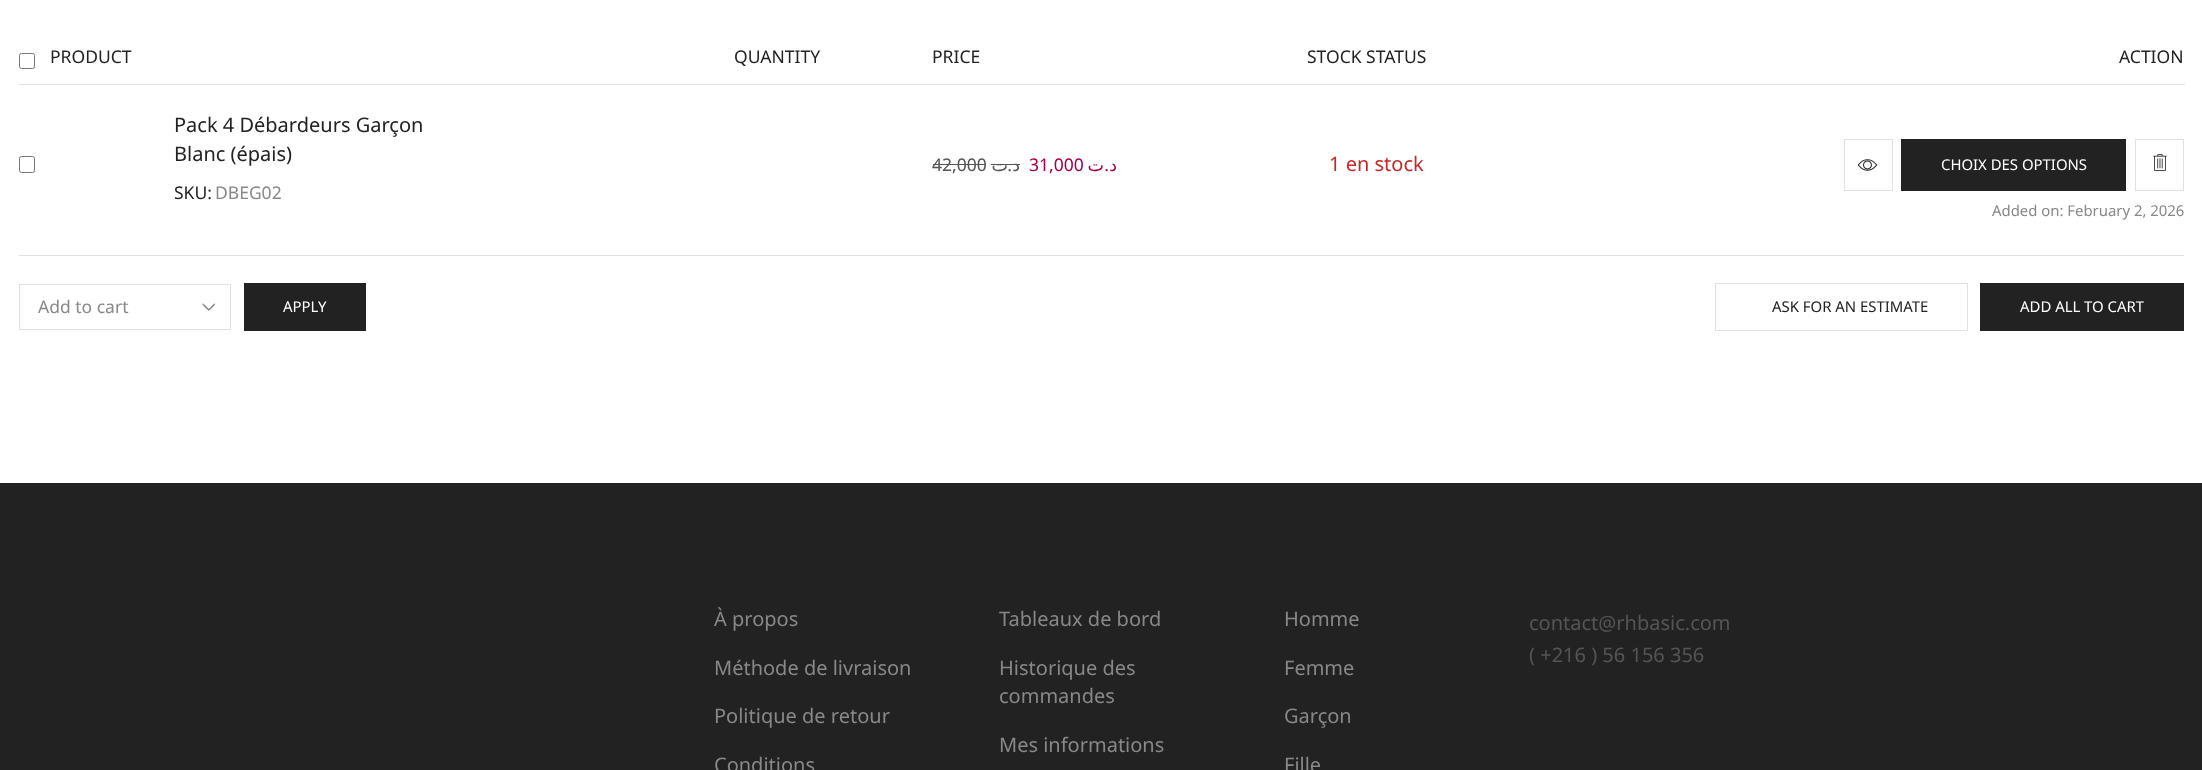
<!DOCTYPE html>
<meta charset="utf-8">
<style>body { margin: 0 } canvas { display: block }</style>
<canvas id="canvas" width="2202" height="770"></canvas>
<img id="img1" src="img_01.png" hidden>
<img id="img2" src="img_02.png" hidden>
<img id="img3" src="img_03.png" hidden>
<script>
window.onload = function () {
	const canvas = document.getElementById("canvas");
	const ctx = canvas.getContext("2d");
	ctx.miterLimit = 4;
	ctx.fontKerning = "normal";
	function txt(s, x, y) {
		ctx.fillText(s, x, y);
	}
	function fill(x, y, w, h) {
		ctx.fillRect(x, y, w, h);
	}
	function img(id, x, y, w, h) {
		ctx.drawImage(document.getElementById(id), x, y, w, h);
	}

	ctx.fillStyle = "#FFFFFF";
	fill(0, 0, 2202, 770);
	ctx.fillStyle = "#E1E1E1";
	fill(19, 84, 2166, 1);
	ctx.beginPath();
	ctx.roundRect(19.5, 53.5, 15, 15, 2);
	ctx.strokeStyle = "#767676";
	ctx.stroke();
	ctx.beginPath();
	ctx.roundRect(19.5, 156.5, 15, 16, 2);
	ctx.stroke();
	ctx.fillStyle = "#555555";
	fill(933, 164, 53, 1);
	fill(991, 164, 29, 1);
	ctx.strokeStyle = "#E1E1E1";
	ctx.strokeRect(1844.5, 139.5, 48, 51);
	img("img1", 1858, 159, 20, 12);
	ctx.fillStyle = "#222222";
	fill(1901, 139, 225, 52);
	ctx.strokeRect(2135.5, 139.5, 48, 51);
	img("img2", 2153, 153, 14, 19);
	ctx.fillStyle = "#E1E1E1";
	fill(19, 255, 2165, 1);
	img("img3", 202, 303, 13, 8);
	ctx.strokeRect(19.5, 284.5, 211, 45);
	ctx.fillStyle = "#222222";
	fill(244, 283, 122, 48);
	ctx.strokeRect(1715.5, 283.5, 252, 47);
	fill(1980, 283, 204, 48);
	fill(0, 483, 2202, 287);
	ctx.font = "17.5px Noto Sans";
	txt("PRODUCT", 50, 63);
	txt("QUANTITY", 734, 63);
	txt("PRICE", 932, 63);
	txt("STOCK STATUS", 1307, 63);
	txt("ACTION", 2119, 63);
	ctx.font = "20px Noto Sans";
	txt("Pack 4 Débardeurs Garçon", 174, 132);
	txt("Blanc (épais)", 174, 161);
	ctx.font = "17.5px Noto Sans";
	txt("SKU:", 174, 199);
	ctx.fillStyle = "#888888";
	txt("DBEG02", 215, 199);
	ctx.fillStyle = "#555555";
	txt("42,000", 932, 171);
	ctx.direction = "rtl";
	ctx.font = "17.5px DejaVu Sans";
	txt("ت", 1008, 171);
	ctx.font = "17.5px Noto Sans";
	txt(".", 1012, 171);
	ctx.font = "17.5px DejaVu Sans";
	txt("د", 1020, 171);
	ctx.direction = "ltr";
	ctx.font = "17.5px Noto Sans";
	ctx.fillStyle = "#A4004F";
	txt("31,000", 1029, 171);
	ctx.direction = "rtl";
	ctx.font = "17.5px DejaVu Sans";
	txt("ت", 1104, 171);
	ctx.font = "17.5px Noto Sans";
	txt(".", 1109, 171);
	ctx.font = "17.5px DejaVu Sans";
	txt("د", 1117, 171);
	ctx.direction = "ltr";
	ctx.font = "20px Noto Sans";
	ctx.fillStyle = "#C62828";
	txt("1 en stock", 1329, 171);
	ctx.font = "14.9px Noto Sans";
	ctx.fillStyle = "#FFFFFF";
	txt("CHOIX DES OPTIONS", 1941, 170);
	ctx.fillStyle = "#888888";
	txt("Added on: February 2, 2026", 1992, 216);
	ctx.font = "17.5px Noto Sans";
	txt("Add to cart", 38, 313);
	ctx.font = "14.9px Noto Sans";
	ctx.fillStyle = "#FFFFFF";
	txt("APPLY", 283, 312);
	ctx.fillStyle = "#222222";
	txt("ASK FOR AN ESTIMATE", 1772, 312);
	ctx.fillStyle = "#FFFFFF";
	txt("ADD ALL TO CART", 2020, 312);
	ctx.font = "20px Noto Sans";
	ctx.fillStyle = "#888888";
	txt("À propos", 714, 626);
	txt("Méthode de livraison", 714, 675);
	txt("Politique de retour", 714, 723);
	txt("Conditions", 714, 772);
	txt("Tableaux de bord", 999, 626);
	txt("Historique des", 999, 675);
	txt("commandes", 999, 703);
	txt("Mes informations", 999, 752);
	txt("Homme", 1284, 626);
	txt("Femme", 1284, 675);
	txt("Garçon", 1284, 723);
	txt("Fille", 1284, 772);
	ctx.fillStyle = "#555555";
	txt("contact@rhbasic.com", 1529, 630);
	txt("( +216 ) 56 156 356", 1529, 662);
};
</script>
